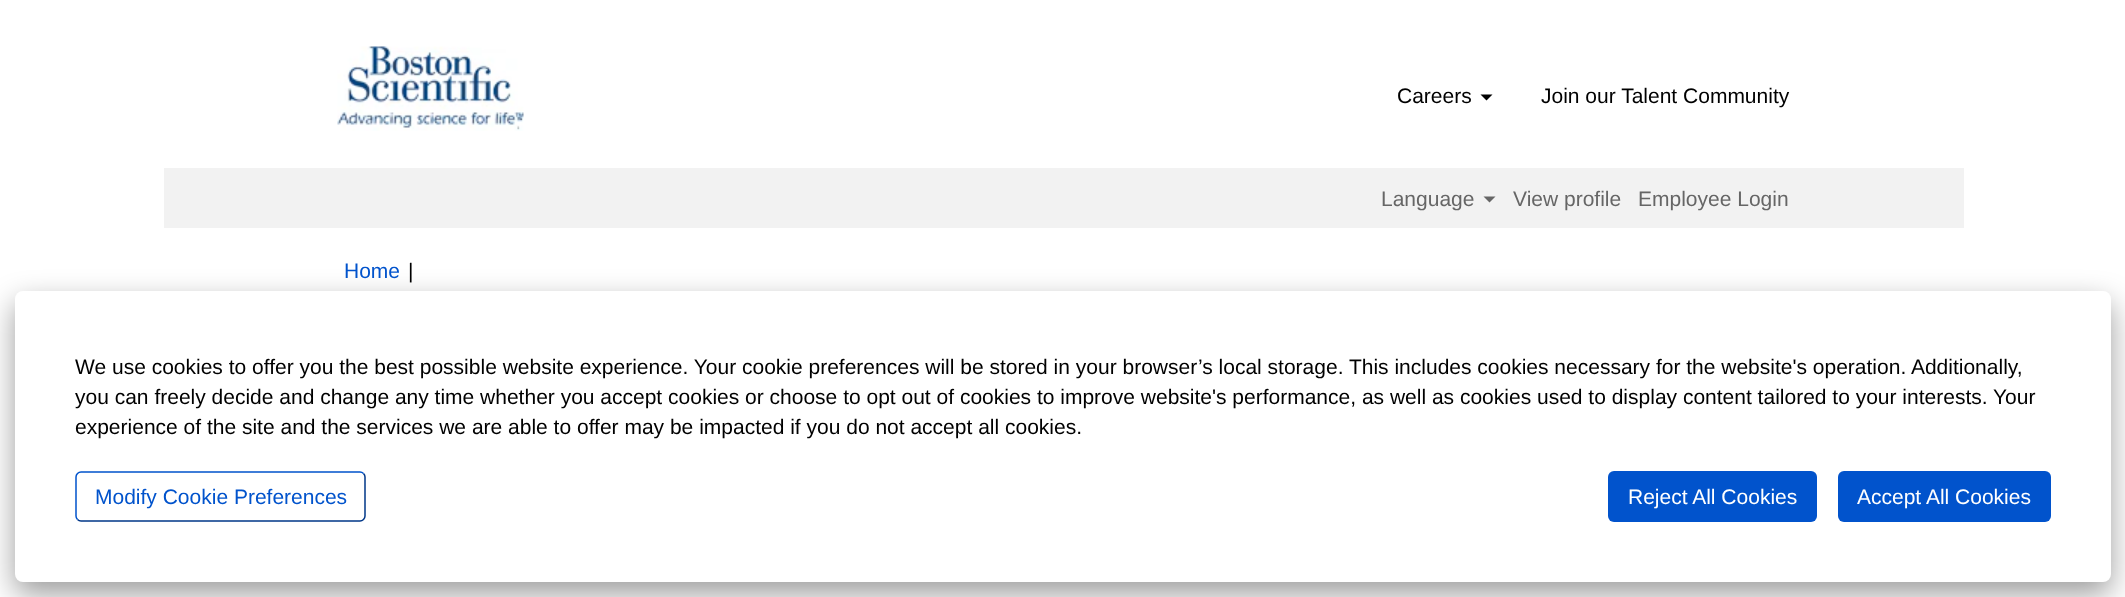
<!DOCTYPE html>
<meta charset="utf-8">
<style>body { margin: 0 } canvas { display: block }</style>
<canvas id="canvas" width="2125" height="597"></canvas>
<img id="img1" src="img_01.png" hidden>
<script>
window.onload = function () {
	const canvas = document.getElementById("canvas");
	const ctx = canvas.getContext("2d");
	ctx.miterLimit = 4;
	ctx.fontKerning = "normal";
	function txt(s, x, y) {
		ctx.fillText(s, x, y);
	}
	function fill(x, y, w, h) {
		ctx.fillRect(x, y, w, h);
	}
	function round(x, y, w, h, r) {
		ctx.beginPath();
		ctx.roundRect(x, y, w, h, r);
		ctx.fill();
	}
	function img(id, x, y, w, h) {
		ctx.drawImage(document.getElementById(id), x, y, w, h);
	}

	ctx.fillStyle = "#FFFFFF";
	fill(0, 0, 2125, 597);
	img("img1", 337, 46, 187, 85);
	ctx.fillStyle = "#000000";
	ctx.beginPath();
	ctx.moveTo(1480.5, 94.5);
	ctx.lineTo(1492.5, 94.5);
	ctx.lineTo(1486.5, 100.5);
	ctx.closePath();
	ctx.fill();
	ctx.fillStyle = "#F2F2F2";
	fill(164, 168, 1800, 60);
	ctx.fillStyle = "#666666";
	ctx.beginPath();
	ctx.moveTo(1483.5, 196.5);
	ctx.lineTo(1495.5, 196.5);
	ctx.lineTo(1489.5, 202.5);
	ctx.closePath();
	ctx.fill();
	ctx.fillStyle = "rgba(0, 0, 0, 0.39)";
	ctx.filter = "blur(15px)";
	ctx.beginPath();
	ctx.roundRect(15, 303, 2096, 291, 8);
	ctx.fill();
	ctx.filter = "none";
	ctx.fillStyle = "#FFFFFF";
	round(15, 291, 2096, 291, 8);
	ctx.beginPath();
	ctx.moveTo(363.5, 473.5);
	ctx.bezierCurveTo(364.5, 474.5, 365, 475.5, 365, 477);
	ctx.lineTo(365, 516);
	ctx.bezierCurveTo(365, 517.5, 364.5, 518.5, 363.5, 519.5);
	ctx.bezierCurveTo(362.5, 520.5, 361.5, 521, 360, 521);
	ctx.lineTo(81, 521);
	ctx.bezierCurveTo(79.5, 521, 78.5, 520.5, 77.5, 519.5);
	ctx.strokeStyle = "#013788";
	ctx.lineWidth = 1.5;
	ctx.stroke();
	ctx.beginPath();
	ctx.moveTo(77.5, 519.5);
	ctx.bezierCurveTo(76.5, 518.5, 76, 517.5, 76, 516);
	ctx.lineTo(76, 477);
	ctx.bezierCurveTo(76, 475.5, 76.5, 474.5, 77.5, 473.5);
	ctx.bezierCurveTo(78.5, 472.5, 79.5, 472, 81, 472);
	ctx.lineTo(360, 472);
	ctx.bezierCurveTo(361.5, 472, 362.5, 472.5, 363.5, 473.5);
	ctx.strokeStyle = "#0153CC";
	ctx.stroke();
	ctx.fillStyle = "#0153CC";
	round(1608, 471, 209, 51, 6);
	round(1838, 471, 213, 51, 6);
	ctx.font = "21px Liberation Sans";
	ctx.fillStyle = "#000000";
	txt("Careers", 1397, 103);
	txt("Join our Talent Community", 1541, 103);
	ctx.fillStyle = "#666666";
	txt("Language", 1381, 206);
	txt("View profile", 1513, 206);
	txt("Employee Login", 1638, 206);
	ctx.fillStyle = "#0153CC";
	txt("Home", 344, 278);
	ctx.fillStyle = "#000000";
	txt("|", 408, 278);
	txt("We use cookies to offer you the best possible website experience. Your cookie preferences will be stored in your browser’s local storage. This includes cookies necessary for the website's operation. Additionally,", 75, 374);
	txt("you can freely decide and change any time whether you accept cookies or choose to opt out of cookies to improve website's performance, as well as cookies used to display content tailored to your interests. Your", 75, 404);
	txt("experience of the site and the services we are able to offer may be impacted if you do not accept all cookies.", 75, 434);
	ctx.fillStyle = "#0153CC";
	txt("Modify Cookie Preferences", 95, 504);
	ctx.fillStyle = "#FFFFFF";
	txt("Reject All Cookies", 1628, 504);
	txt("Accept All Cookies", 1857, 504);
};
</script>
